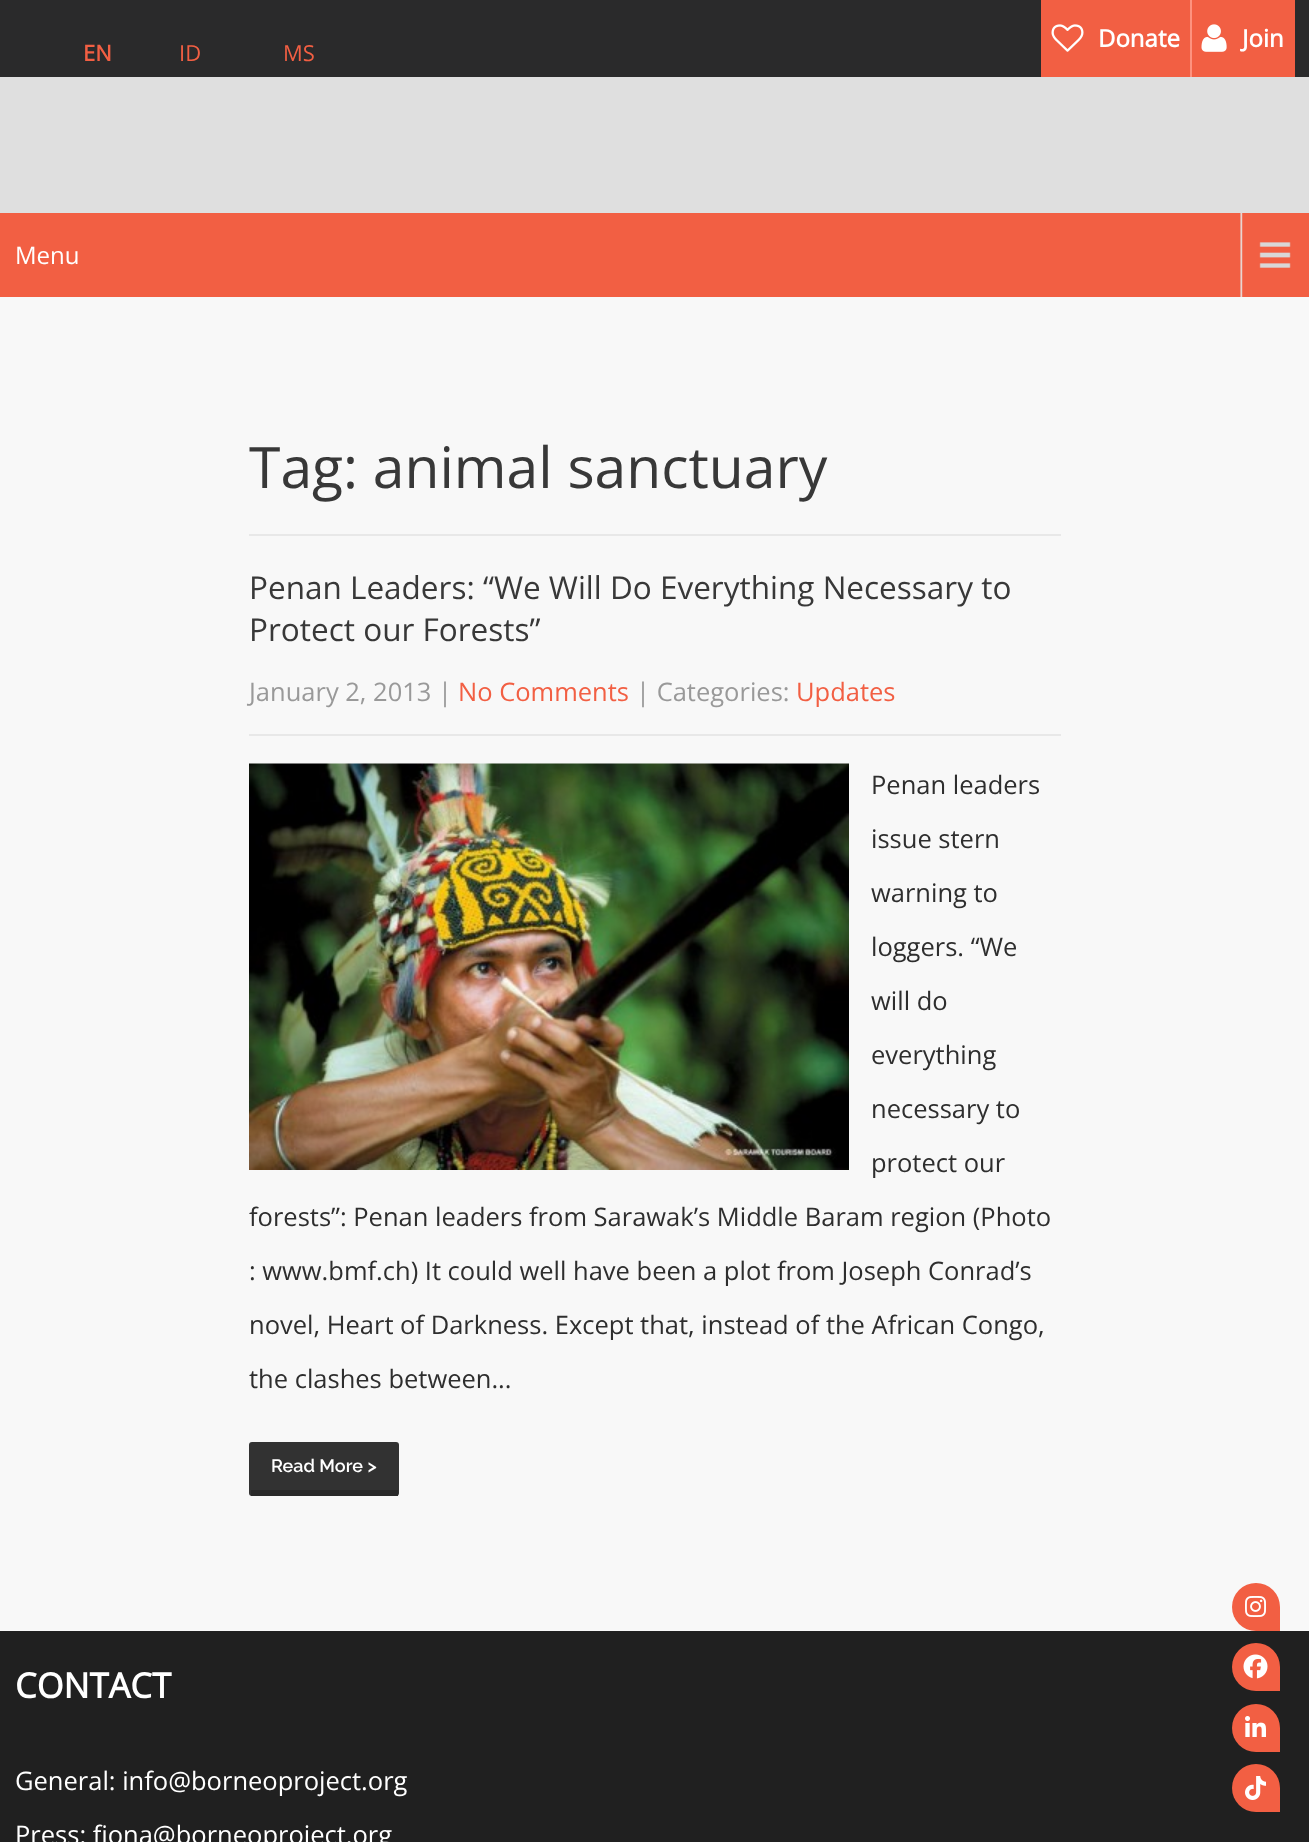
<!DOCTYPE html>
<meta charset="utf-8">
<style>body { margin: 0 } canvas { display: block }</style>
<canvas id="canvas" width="1309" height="1842"></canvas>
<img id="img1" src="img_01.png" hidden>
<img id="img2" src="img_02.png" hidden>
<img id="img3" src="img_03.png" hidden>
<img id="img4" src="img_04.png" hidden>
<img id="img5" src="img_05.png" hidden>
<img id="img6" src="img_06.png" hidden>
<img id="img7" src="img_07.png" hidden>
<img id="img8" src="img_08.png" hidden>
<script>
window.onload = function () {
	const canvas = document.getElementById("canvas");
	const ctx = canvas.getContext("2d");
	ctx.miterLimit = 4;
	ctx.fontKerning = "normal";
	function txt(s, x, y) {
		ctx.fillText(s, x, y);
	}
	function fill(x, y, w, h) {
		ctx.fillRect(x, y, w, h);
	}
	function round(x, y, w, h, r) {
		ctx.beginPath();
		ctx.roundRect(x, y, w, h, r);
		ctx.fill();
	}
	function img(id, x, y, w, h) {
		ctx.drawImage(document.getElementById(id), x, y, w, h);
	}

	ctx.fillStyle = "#F8F8F8";
	fill(0, 0, 1309, 1842);
	ctx.fillStyle = "#2A2A2B";
	fill(0, 0, 1309, 77);
	ctx.fillStyle = "#F25F43";
	fill(1041, 0, 254, 77);
	ctx.fillStyle = "#FE927E";
	fill(1190, 0, 2, 77);
	img("img1", 1051, 24, 33, 28);
	img("img2", 1201, 24, 26, 28);
	ctx.fillStyle = "#DFDFDF";
	fill(0, 77, 1309, 136);
	ctx.fillStyle = "#F25F43";
	fill(0, 213, 1309, 84);
	img("img3", 1240, 213, 51, 84);
	ctx.fillStyle = "#E8E8E8";
	fill(249, 534, 812, 2);
	fill(249, 734, 812, 2);
	img("img4", 249, 763, 600, 407);
	ctx.fillStyle = "#323232";
	round(249, 1442, 150, 54, 3);
	ctx.fillStyle = "#292929";
	fill(251, 1490, 147, 6);
	ctx.fillStyle = "#202020";
	fill(0, 1631, 1309, 211);
	ctx.fillStyle = "#F25F43";
	ctx.beginPath();
	ctx.roundRect(1232, 1583, 48, 48, [24, 24, 0, 24]);
	ctx.fill();
	img("img5", 1245, 1596, 21, 21);
	ctx.beginPath();
	ctx.roundRect(1232, 1643, 48, 48, [24, 24, 0, 24]);
	ctx.fill();
	img("img6", 1243, 1654, 25, 25);
	ctx.beginPath();
	ctx.roundRect(1232, 1704, 48, 48, [24, 24, 0, 24]);
	ctx.fill();
	img("img7", 1245, 1716, 21, 21);
	ctx.beginPath();
	ctx.roundRect(1232, 1764, 48, 48, [24, 24, 0, 24]);
	ctx.fill();
	img("img8", 1245, 1776, 21, 24);
	ctx.font = "bold 24px Open Sans";
	ctx.fillStyle = "#FFFFFF";
	txt("Donate", 1098, 47);
	txt("Join", 1242, 47);
	ctx.font = "24px Open Sans";
	txt("Menu", 15, 264);
	ctx.font = "bold 22px Open Sans";
	ctx.fillStyle = "#F25F43";
	txt("EN", 83, 61);
	ctx.font = "22px Open Sans";
	txt("ID", 179, 61);
	txt("MS", 283, 61);
	ctx.font = "57px Open Sans";
	ctx.fillStyle = "#383838";
	txt("Tag: animal sanctuary", 249, 488);
	ctx.font = "31.5px Open Sans";
	txt("Penan Leaders: “We Will Do Everything Necessary to", 249, 599);
	txt("Protect our Forests”", 249, 641);
	ctx.font = "25.5px Open Sans";
	ctx.fillStyle = "#999999";
	txt("January 2, 2013 |", 249, 701);
	ctx.fillStyle = "#F25F43";
	txt("No Comments", 458, 701);
	ctx.fillStyle = "#999999";
	txt("| Categories:", 636, 701);
	ctx.fillStyle = "#F25F43";
	txt("Updates", 796, 701);
	ctx.fillStyle = "#2E2E2E";
	txt("Penan leaders", 871, 794);
	txt("issue stern", 871, 848);
	txt("warning to", 871, 902);
	txt("loggers. “We", 871, 956);
	txt("will do", 871, 1010);
	txt("everything", 871, 1064);
	txt("necessary to", 871, 1118);
	txt("protect our", 871, 1172);
	txt("forests”: Penan leaders from Sarawak’s Middle Baram region (Photo", 249, 1226);
	txt(": www.bmf.ch) It could well have been a plot from Joseph Conrad’s", 249, 1280);
	txt("novel, Heart of Darkness. Except that, instead of the African Congo,", 249, 1334);
	txt("the clashes between...", 249, 1388);
	ctx.font = "600 18px Raleway";
	ctx.fillStyle = "#FFFFFF";
	txt("Read More >", 271, 1472);
	ctx.font = "bold 34.5px Open Sans";
	txt("CONTACT", 15, 1698);
	ctx.font = "25.5px Open Sans";
	txt("General: info@borneoproject.org", 15, 1790);
	txt("Press: fiona@borneoproject.org", 15, 1844);
};
</script>
